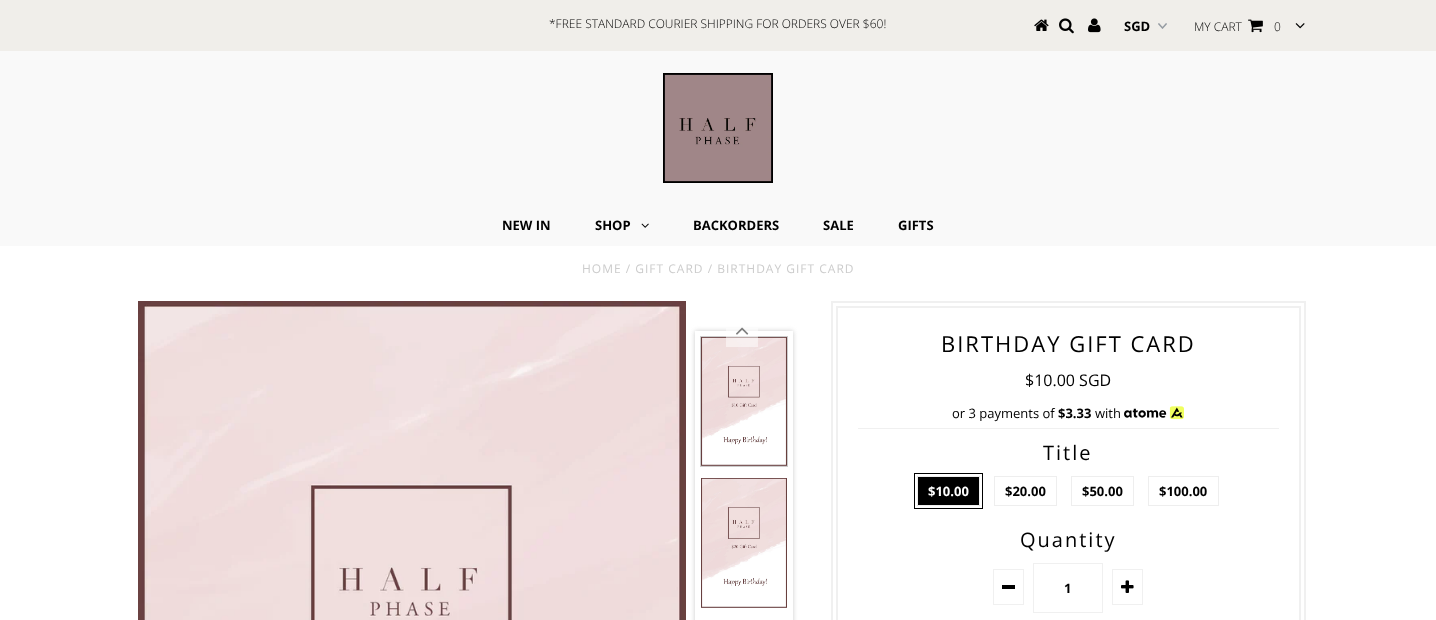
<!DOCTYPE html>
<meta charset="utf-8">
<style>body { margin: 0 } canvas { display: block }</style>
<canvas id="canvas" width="1436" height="620"></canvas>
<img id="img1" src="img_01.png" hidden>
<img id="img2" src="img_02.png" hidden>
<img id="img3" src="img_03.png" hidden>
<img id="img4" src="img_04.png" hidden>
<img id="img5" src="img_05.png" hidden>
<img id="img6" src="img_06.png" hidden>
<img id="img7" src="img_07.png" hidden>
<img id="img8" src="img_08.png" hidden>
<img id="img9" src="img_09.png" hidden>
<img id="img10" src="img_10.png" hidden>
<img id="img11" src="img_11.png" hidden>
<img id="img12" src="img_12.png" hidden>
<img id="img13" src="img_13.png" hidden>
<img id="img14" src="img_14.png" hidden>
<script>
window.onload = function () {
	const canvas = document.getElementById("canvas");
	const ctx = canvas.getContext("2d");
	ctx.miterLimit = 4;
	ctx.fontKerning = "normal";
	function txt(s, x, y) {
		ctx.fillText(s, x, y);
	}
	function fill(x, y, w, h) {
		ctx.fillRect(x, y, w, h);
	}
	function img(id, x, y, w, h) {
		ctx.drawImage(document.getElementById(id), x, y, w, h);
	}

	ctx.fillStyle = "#FFFFFF";
	fill(0, 0, 1436, 620);
	ctx.fillStyle = "#F0EEEA";
	fill(0, 0, 1436, 51);
	img("img1", 1034, 19, 15, 12);
	img("img2", 1059, 18, 15, 16);
	img("img3", 1088, 18, 13, 15);
	img("img4", 1158, 23, 9, 6);
	img("img5", 1248, 19, 15, 14);
	img("img6", 1295, 23, 10, 6);
	ctx.fillStyle = "#F9F9F9";
	fill(0, 51, 1436, 195);
	img("img7", 663, 73, 110, 110);
	img("img8", 641, 223, 8, 5);
	img("img9", 138, 301, 548, 319);
	ctx.save();
	ctx.beginPath();
	ctx.moveTo(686, 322);
	ctx.lineTo(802, 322);
	ctx.lineTo(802, 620);
	ctx.lineTo(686, 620);
	ctx.closePath();
	ctx.moveTo(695, 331);
	ctx.lineTo(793, 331);
	ctx.lineTo(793, 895);
	ctx.lineTo(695, 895);
	ctx.closePath();
	ctx.clip("evenodd");
	ctx.fillStyle = "#CCCCCC";
	ctx.filter = "blur(2.5px)";
	ctx.beginPath();
	ctx.rect(695, 331, 98, 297);
	ctx.fill();
	ctx.filter = "none";
	ctx.restore();
	ctx.strokeStyle = "#CCCCCC";
	ctx.strokeRect(700.5, 336.5, 87, 130);
	img("img10", 701, 337, 86, 129);
	img("img11", 701, 478, 86, 130);
	ctx.fillStyle = "rgba(255, 255, 255, 0.5)";
	fill(726, 328, 32, 19);
	img("img12", 736, 327, 13, 8);
	ctx.strokeStyle = "#F0F0F0";
	ctx.lineWidth = 2;
	ctx.strokeRect(832, 302, 473, 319);
	ctx.strokeRect(837, 307, 463, 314);
	img("img13", 1124, 406, 60, 14);
	ctx.fillStyle = "#F0F0F0";
	fill(858, 428, 421, 1);
	ctx.fillStyle = "#000000";
	ctx.beginPath();
	ctx.rect(917.5, 476.5, 62, 29);
	ctx.fill();
	ctx.strokeStyle = "#EEEEEE";
	ctx.lineWidth = 1;
	ctx.stroke();
	ctx.strokeStyle = "#000000";
	ctx.strokeRect(914.5, 473.5, 68, 35);
	ctx.strokeStyle = "#EEEEEE";
	ctx.strokeRect(994.5, 476.5, 62, 29);
	ctx.strokeRect(1071.5, 476.5, 62, 29);
	ctx.strokeRect(1148.5, 476.5, 70, 29);
	ctx.strokeStyle = "#F0F0F0";
	ctx.strokeRect(993.5, 569.5, 30, 35);
	fill(1002, 585, 13, 4);
	ctx.strokeRect(1033.5, 563.5, 69, 49);
	ctx.strokeRect(1112.5, 569.5, 30, 35);
	img("img14", 1121, 580, 13, 13);
	ctx.font = "300 12px Open Sans";
	txt("*FREE STANDARD COURIER SHIPPING FOR ORDERS OVER $60!", 549, 28);
	ctx.font = "bold 13px Open Sans";
	txt("SGD", 1124, 31);
	ctx.font = "300 12px Open Sans";
	txt("MY CART", 1194, 31);
	txt("0", 1274, 31);
	ctx.font = "bold 13px Open Sans";
	txt("NEW IN", 502, 230);
	txt("SHOP", 595, 230);
	txt("BACKORDERS", 693, 230);
	txt("SALE", 823, 230);
	txt("GIFTS", 898, 230);
	ctx.letterSpacing = "1px";
	ctx.font = "12px Open Sans";
	ctx.fillStyle = "#CCCCCC";
	txt("HOME / GIFT CARD / BIRTHDAY GIFT CARD", 582, 273);
	ctx.letterSpacing = "2px";
	ctx.font = "22px Open Sans";
	ctx.fillStyle = "#000000";
	txt("BIRTHDAY GIFT CARD", 941, 352);
	ctx.letterSpacing = "0px";
	ctx.font = "16px Open Sans";
	txt("$10.00 SGD", 1025, 386);
	ctx.font = "13px Open Sans";
	txt("or 3 payments of", 952, 418);
	ctx.font = "bold 13px Open Sans";
	txt("$3.33", 1058, 418);
	ctx.font = "13px Open Sans";
	txt("with", 1095, 418);
	ctx.letterSpacing = "2px";
	ctx.font = "20px Open Sans";
	txt("Title", 1043, 460);
	ctx.letterSpacing = "0px";
	ctx.font = "bold 13px Open Sans";
	ctx.fillStyle = "#FFFFFF";
	txt("$10.00", 928, 496);
	ctx.fillStyle = "#000000";
	txt("$20.00", 1005, 496);
	txt("$50.00", 1082, 496);
	txt("$100.00", 1159, 496);
	ctx.letterSpacing = "2px";
	ctx.font = "20px Open Sans";
	txt("Quantity", 1020, 547);
	ctx.letterSpacing = "0px";
	ctx.font = "bold 13px Open Sans";
	txt("1", 1064, 593);
};
</script>
